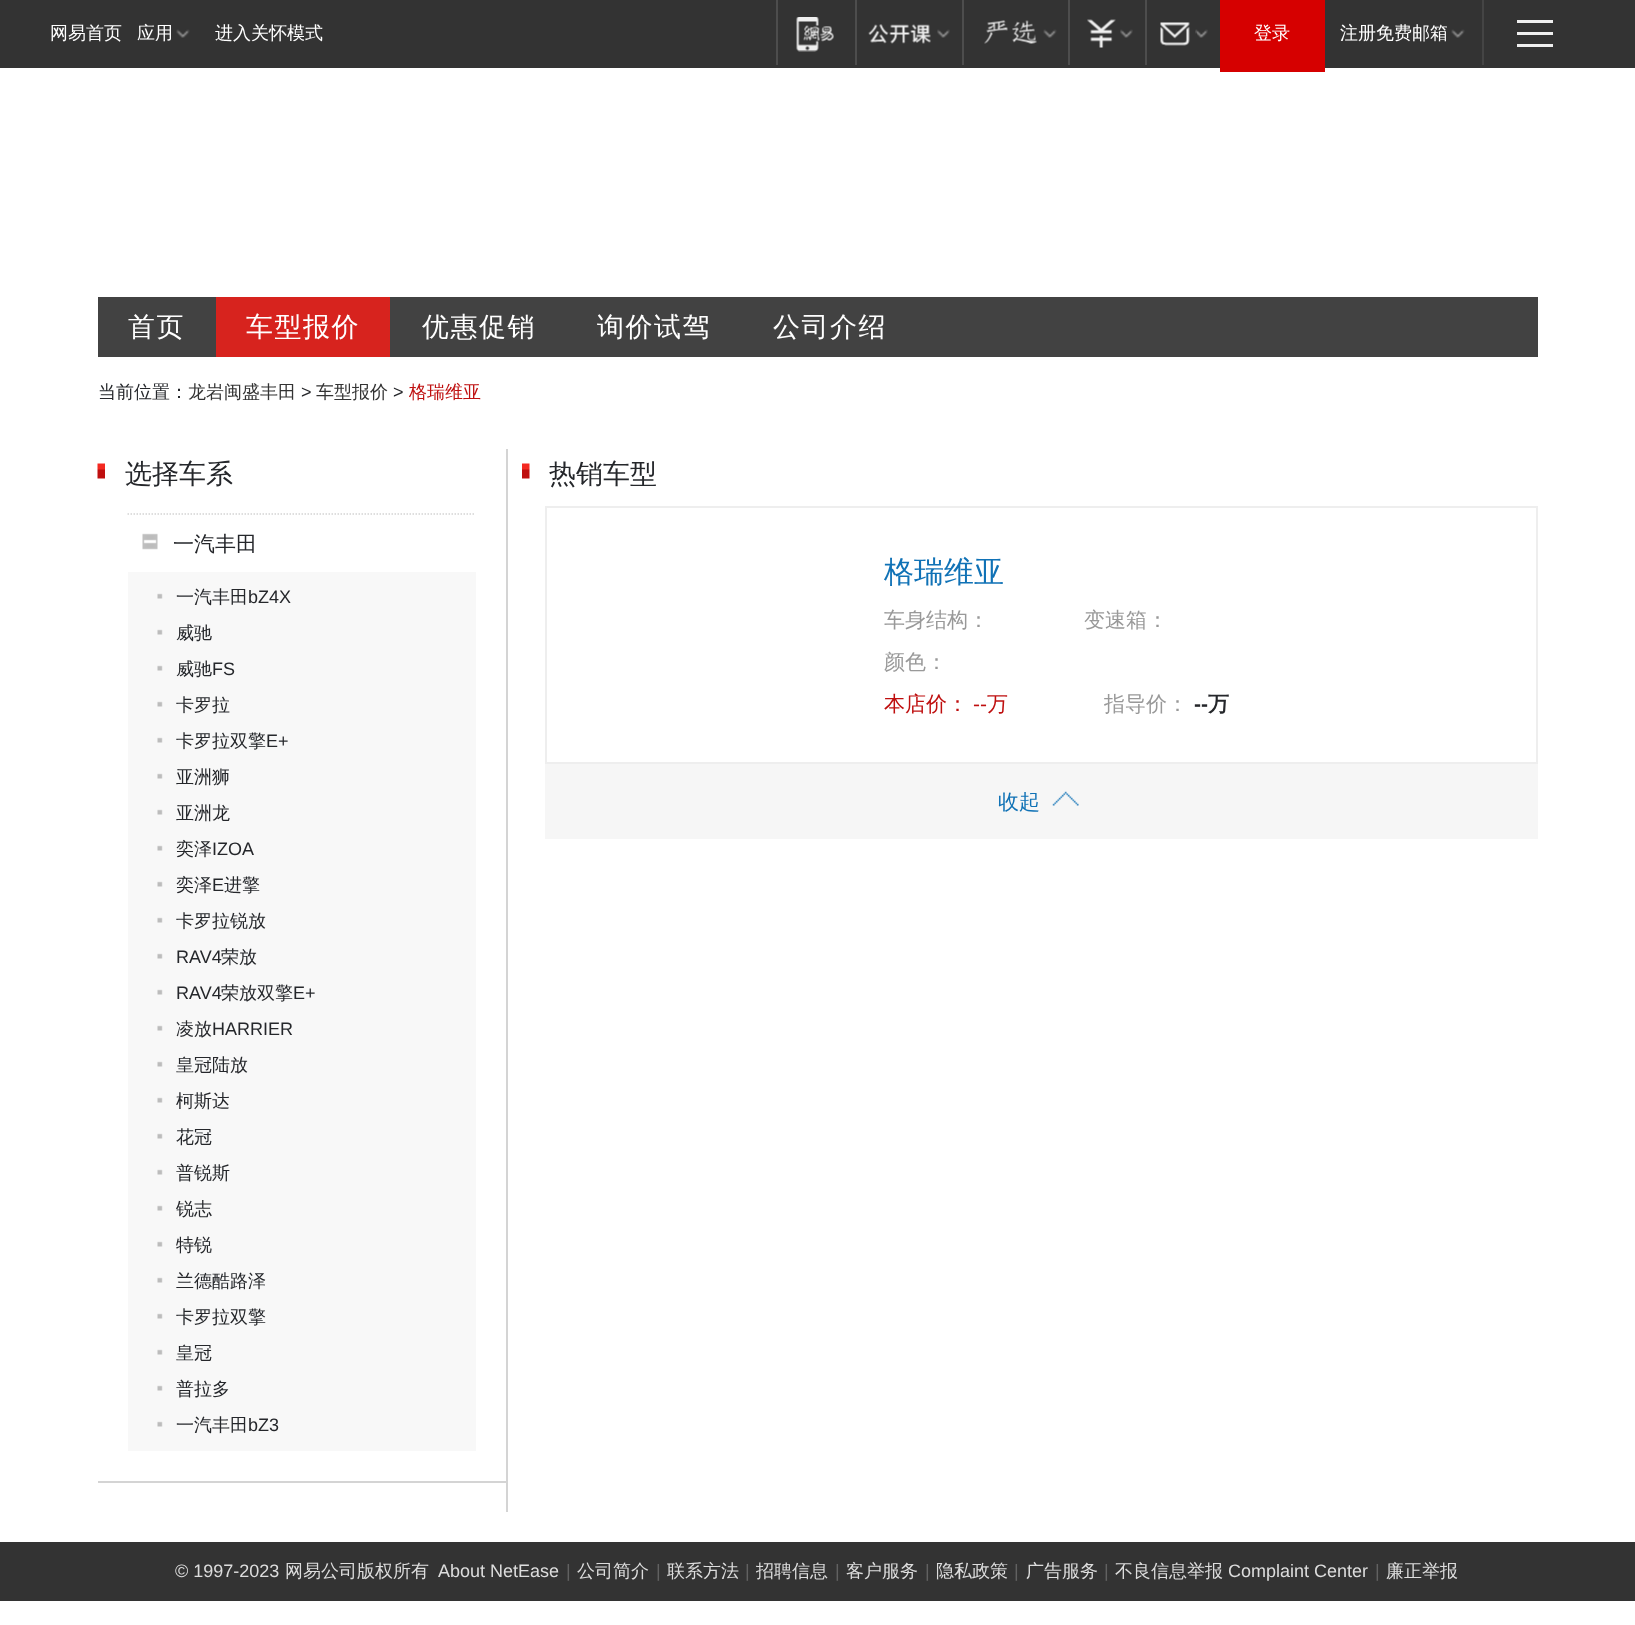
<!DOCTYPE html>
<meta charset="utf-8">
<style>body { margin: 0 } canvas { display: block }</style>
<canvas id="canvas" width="1635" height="1625"></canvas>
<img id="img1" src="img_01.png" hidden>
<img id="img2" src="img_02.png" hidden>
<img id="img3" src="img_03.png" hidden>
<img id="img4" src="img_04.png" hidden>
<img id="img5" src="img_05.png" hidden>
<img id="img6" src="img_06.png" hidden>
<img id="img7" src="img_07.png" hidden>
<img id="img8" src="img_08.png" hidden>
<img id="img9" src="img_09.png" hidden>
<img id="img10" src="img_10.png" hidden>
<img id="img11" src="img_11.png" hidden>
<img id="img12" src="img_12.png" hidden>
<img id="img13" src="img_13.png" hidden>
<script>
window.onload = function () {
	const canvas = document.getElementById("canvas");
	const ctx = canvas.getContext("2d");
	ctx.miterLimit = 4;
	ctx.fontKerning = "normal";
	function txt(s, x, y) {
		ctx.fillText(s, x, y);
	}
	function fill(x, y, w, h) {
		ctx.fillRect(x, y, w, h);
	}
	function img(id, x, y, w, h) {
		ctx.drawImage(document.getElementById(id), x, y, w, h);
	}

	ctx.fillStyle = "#FFFFFF";
	fill(0, 0, 1635, 1625);
	ctx.fillStyle = "#333333";
	fill(0, 0, 1635, 68);
	img("img1", 176, 29, 14, 9);
	ctx.fillStyle = "#4D4D4D";
	fill(776, 0, 2, 65);
	img("img2", 796, 17, 38, 35);
	fill(855, 0, 2, 65);
	img("img3", 868, 24, 63, 20);
	img("img4", 937, 29, 13, 9);
	fill(962, 0, 2, 65);
	img("img5", 984, 20, 53, 24);
	img("img1", 1043, 29, 14, 9);
	fill(1068, 0, 2, 65);
	img("img6", 1087, 19, 29, 29);
	img("img4", 1120, 29, 13, 9);
	fill(1145, 0, 2, 65);
	img("img7", 1160, 22, 30, 24);
	img("img8", 1195, 29, 13, 9);
	ctx.fillStyle = "#D60000";
	fill(1220, 0, 105, 72);
	img("img1", 1451, 29, 14, 9);
	ctx.fillStyle = "#444444";
	fill(1482, 0, 2, 65);
	ctx.fillStyle = "#EFEFEF";
	fill(1517, 20, 36, 3);
	fill(1517, 32, 36, 3);
	fill(1517, 44, 36, 3);
	ctx.fillStyle = "#424242";
	fill(98, 297, 1440, 60);
	ctx.fillStyle = "#D7231E";
	fill(216, 297, 174, 60);
	ctx.fillStyle = "#D4D4D4";
	fill(506, 449, 2, 1063);
	fill(98, 1481, 408, 2);
	img("img9", 97, 463, 8, 16);
	ctx.beginPath();
	ctx.moveTo(127.5, 514);
	ctx.lineTo(475.5, 514);
	ctx.strokeStyle = "#D4D4D4";
	ctx.lineWidth = 1.5;
	ctx.setLineDash([1.5, 1.5]);
	ctx.stroke();
	img("img10", 142, 533, 16, 17);
	ctx.fillStyle = "#F8F8F8";
	fill(128, 572, 348, 879);
	img("img11", 157, 593, 6, 6);
	img("img11", 157, 629, 6, 6);
	img("img11", 157, 665, 6, 6);
	img("img11", 157, 701, 6, 6);
	img("img11", 157, 737, 6, 6);
	img("img11", 157, 773, 6, 6);
	img("img11", 157, 809, 6, 6);
	img("img11", 157, 845, 6, 6);
	img("img11", 157, 881, 6, 6);
	img("img11", 157, 917, 6, 6);
	img("img11", 157, 953, 6, 6);
	img("img11", 157, 989, 6, 6);
	img("img11", 157, 1025, 6, 6);
	img("img11", 157, 1061, 6, 6);
	img("img11", 157, 1097, 6, 6);
	img("img11", 157, 1133, 6, 6);
	img("img11", 157, 1169, 6, 6);
	img("img11", 157, 1205, 6, 6);
	img("img11", 157, 1241, 6, 6);
	img("img11", 157, 1277, 6, 6);
	img("img11", 157, 1313, 6, 6);
	img("img11", 157, 1349, 6, 6);
	img("img11", 157, 1385, 6, 6);
	img("img11", 157, 1421, 6, 6);
	img("img12", 522, 463, 8, 16);
	ctx.strokeStyle = "#EEEEEE";
	ctx.lineWidth = 2;
	ctx.setLineDash([]);
	ctx.strokeRect(546, 507, 991, 256);
	ctx.fillStyle = "#F6F6F6";
	fill(545, 764, 993, 75);
	img("img13", 1052, 791, 27, 15);
	ctx.fillStyle = "#333333";
	fill(0, 1542, 1635, 59);
	ctx.font = "500 18px WenQuanYi Zen Hei";
	ctx.fillStyle = "#FFFFFF";
	txt("网易首页", 50, 39);
	txt("应用", 137, 39);
	txt("进入关怀模式", 215, 39);
	txt("登录", 1254, 39);
	txt("注册免费邮箱", 1340, 39);
	ctx.letterSpacing = "1.5px";
	ctx.font = "500 27px WenQuanYi Zen Hei";
	txt("首页", 128, 336);
	txt("车型报价", 246, 336);
	txt("优惠促销", 422, 336);
	txt("询价试驾", 597, 336);
	txt("公司介绍", 773, 336);
	ctx.letterSpacing = "0px";
	ctx.font = "500 18px WenQuanYi Zen Hei";
	ctx.fillStyle = "#25272B";
	txt("当前位置：", 98, 398);
	ctx.fillStyle = "#333333";
	txt("龙岩闽盛丰田", 188, 398);
	ctx.font = "18px Liberation Sans";
	ctx.fillStyle = "#25272B";
	txt(">", 301, 398);
	ctx.font = "500 18px WenQuanYi Zen Hei";
	ctx.fillStyle = "#333333";
	txt("车型报价", 316, 398);
	ctx.font = "18px Liberation Sans";
	ctx.fillStyle = "#25272B";
	txt(">", 393, 398);
	ctx.font = "500 18px WenQuanYi Zen Hei";
	ctx.fillStyle = "#BF0F0F";
	txt("格瑞维亚", 409, 398);
	ctx.font = "500 27px WenQuanYi Zen Hei";
	ctx.fillStyle = "#25272B";
	txt("选择车系", 125, 483);
	ctx.font = "500 21px WenQuanYi Zen Hei";
	txt("一汽丰田", 173, 551);
	ctx.font = "500 18px WenQuanYi Zen Hei";
	txt("一汽丰田", 176, 603);
	ctx.font = "18px Liberation Sans";
	txt("bZ4X", 248, 603);
	ctx.font = "500 18px WenQuanYi Zen Hei";
	txt("威驰", 176, 639);
	txt("威驰", 176, 675);
	ctx.font = "18px Liberation Sans";
	txt("FS", 212, 675);
	ctx.font = "500 18px WenQuanYi Zen Hei";
	txt("卡罗拉", 176, 711);
	txt("卡罗拉双擎", 176, 747);
	ctx.font = "18px Liberation Sans";
	txt("E+", 266, 747);
	ctx.font = "500 18px WenQuanYi Zen Hei";
	txt("亚洲狮", 176, 783);
	txt("亚洲龙", 176, 819);
	txt("奕泽", 176, 855);
	ctx.font = "18px Liberation Sans";
	txt("IZOA", 212, 855);
	ctx.font = "500 18px WenQuanYi Zen Hei";
	txt("奕泽", 176, 891);
	ctx.font = "18px Liberation Sans";
	txt("E", 212, 891);
	ctx.font = "500 18px WenQuanYi Zen Hei";
	txt("进擎", 224, 891);
	txt("卡罗拉锐放", 176, 927);
	ctx.font = "18px Liberation Sans";
	txt("RAV4", 176, 963);
	ctx.font = "500 18px WenQuanYi Zen Hei";
	txt("荣放", 221, 963);
	ctx.font = "18px Liberation Sans";
	txt("RAV4", 176, 999);
	ctx.font = "500 18px WenQuanYi Zen Hei";
	txt("荣放双擎", 221, 999);
	ctx.font = "18px Liberation Sans";
	txt("E+", 293, 999);
	ctx.font = "500 18px WenQuanYi Zen Hei";
	txt("凌放", 176, 1035);
	ctx.font = "18px Liberation Sans";
	txt("HARRIER", 212, 1035);
	ctx.font = "500 18px WenQuanYi Zen Hei";
	txt("皇冠陆放", 176, 1071);
	txt("柯斯达", 176, 1107);
	txt("花冠", 176, 1143);
	txt("普锐斯", 176, 1179);
	txt("锐志", 176, 1215);
	txt("特锐", 176, 1251);
	txt("兰德酷路泽", 176, 1287);
	txt("卡罗拉双擎", 176, 1323);
	txt("皇冠", 176, 1359);
	txt("普拉多", 176, 1395);
	txt("一汽丰田", 176, 1431);
	ctx.font = "18px Liberation Sans";
	txt("bZ3", 248, 1431);
	ctx.font = "500 27px WenQuanYi Zen Hei";
	txt("热销车型", 549, 483);
	ctx.font = "500 30px WenQuanYi Zen Hei";
	ctx.fillStyle = "#1072B6";
	txt("格瑞维亚", 884, 582);
	ctx.font = "500 21px WenQuanYi Zen Hei";
	ctx.fillStyle = "#999999";
	txt("车身结构：", 884, 627);
	txt("变速箱：", 1084, 627);
	txt("颜色：", 884, 669);
	ctx.fillStyle = "#BF0F0F";
	txt("本店价：", 884, 711);
	ctx.font = "21px Liberation Sans";
	txt("--", 973, 711);
	ctx.font = "500 21px WenQuanYi Zen Hei";
	txt("万", 987, 711);
	ctx.fillStyle = "#999999";
	txt("指导价：", 1104, 711);
	ctx.font = "bold 21px Liberation Sans";
	ctx.fillStyle = "#25272B";
	txt("--", 1194, 711);
	ctx.font = "bold 21px WenQuanYi Zen Hei";
	txt("万", 1208, 711);
	ctx.font = "500 21px WenQuanYi Zen Hei";
	ctx.fillStyle = "#1072B6";
	txt("收起", 998, 809);
	ctx.font = "18px Liberation Sans";
	ctx.fillStyle = "#DDDDDD";
	txt("© 1997-2023", 175, 1577);
	ctx.font = "500 18px WenQuanYi Zen Hei";
	txt("网易公司版权所有", 285, 1577);
	ctx.font = "18px Liberation Sans";
	txt("About NetEase", 438, 1577);
	ctx.fillStyle = "#616161";
	txt("|", 566, 1577);
	ctx.font = "500 18px WenQuanYi Zen Hei";
	ctx.fillStyle = "#DDDDDD";
	txt("公司简介", 577, 1577);
	ctx.font = "18px Liberation Sans";
	ctx.fillStyle = "#616161";
	txt("|", 656, 1577);
	ctx.font = "500 18px WenQuanYi Zen Hei";
	ctx.fillStyle = "#DDDDDD";
	txt("联系方法", 667, 1577);
	ctx.font = "18px Liberation Sans";
	ctx.fillStyle = "#616161";
	txt("|", 745, 1577);
	ctx.font = "500 18px WenQuanYi Zen Hei";
	ctx.fillStyle = "#DDDDDD";
	txt("招聘信息", 756, 1577);
	ctx.font = "18px Liberation Sans";
	ctx.fillStyle = "#616161";
	txt("|", 835, 1577);
	ctx.font = "500 18px WenQuanYi Zen Hei";
	ctx.fillStyle = "#DDDDDD";
	txt("客户服务", 846, 1577);
	ctx.font = "18px Liberation Sans";
	ctx.fillStyle = "#616161";
	txt("|", 925, 1577);
	ctx.font = "500 18px WenQuanYi Zen Hei";
	ctx.fillStyle = "#DDDDDD";
	txt("隐私政策", 936, 1577);
	ctx.font = "18px Liberation Sans";
	ctx.fillStyle = "#616161";
	txt("|", 1014, 1577);
	ctx.font = "500 18px WenQuanYi Zen Hei";
	ctx.fillStyle = "#DDDDDD";
	txt("广告服务", 1026, 1577);
	ctx.font = "18px Liberation Sans";
	ctx.fillStyle = "#616161";
	txt("|", 1104, 1577);
	ctx.font = "500 18px WenQuanYi Zen Hei";
	ctx.fillStyle = "#DDDDDD";
	txt("不良信息举报", 1115, 1577);
	ctx.font = "18px Liberation Sans";
	txt("Complaint Center", 1228, 1577);
	ctx.fillStyle = "#616161";
	txt("|", 1375, 1577);
	ctx.font = "500 18px WenQuanYi Zen Hei";
	ctx.fillStyle = "#DDDDDD";
	txt("廉正举报", 1386, 1577);
};
</script>
